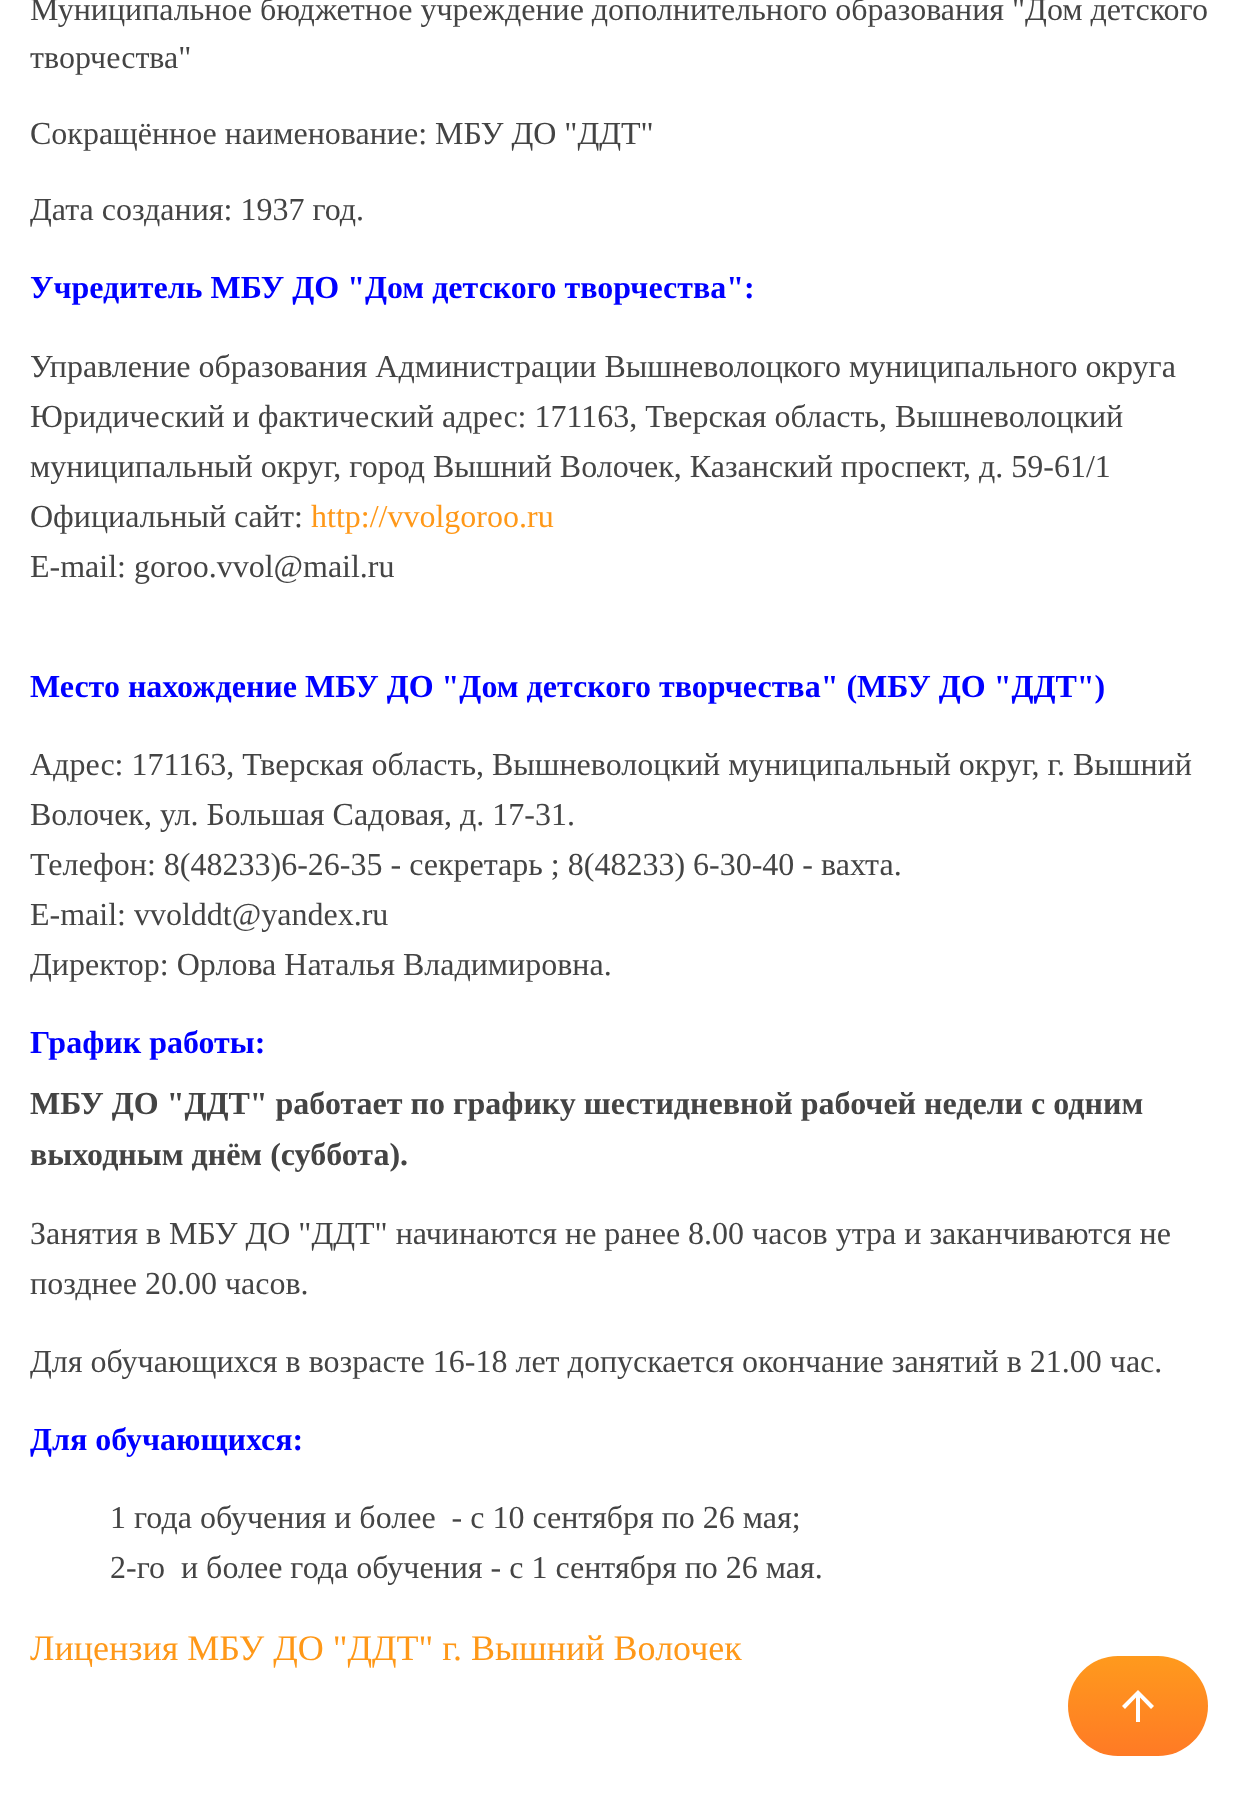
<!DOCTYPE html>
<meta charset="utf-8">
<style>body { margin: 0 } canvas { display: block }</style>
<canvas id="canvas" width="1247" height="1795"></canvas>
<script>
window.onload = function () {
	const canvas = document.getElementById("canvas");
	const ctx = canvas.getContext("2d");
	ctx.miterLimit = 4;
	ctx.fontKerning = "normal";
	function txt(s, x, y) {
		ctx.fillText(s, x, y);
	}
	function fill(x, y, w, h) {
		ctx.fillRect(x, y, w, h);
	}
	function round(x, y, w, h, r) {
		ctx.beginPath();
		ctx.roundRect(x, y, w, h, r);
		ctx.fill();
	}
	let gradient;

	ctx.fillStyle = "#FFFFFF";
	fill(0, 0, 1247, 1795);
	gradient = ctx.createLinearGradient(1093, 1756, 1093, 1656);
	gradient.addColorStop(0, "#FF7A25");
	gradient.addColorStop(1, "#FF9A1D");
	ctx.fillStyle = gradient;
	round(1068, 1656, 140, 100, 50);
	ctx.fillStyle = "#FFFFFF";
	ctx.beginPath();
	ctx.moveTo(1122, 1706);
	ctx.lineTo(1138, 1690);
	ctx.lineTo(1154, 1706);
	ctx.lineTo(1151, 1709);
	ctx.lineTo(1140, 1697.5);
	ctx.lineTo(1140, 1722);
	ctx.lineTo(1136, 1722);
	ctx.lineTo(1136, 1697.5);
	ctx.lineTo(1125, 1709);
	ctx.closePath();
	ctx.fill();
	ctx.font = "32px Liberation Serif";
	ctx.fillStyle = "#444444";
	txt("Муниципальное бюджетное учреждение дополнительного образования \"Дом детского", 30, 20);
	txt("творчества\"", 30, 68);
	txt("Сокращённое наименование: МБУ ДО \"ДДТ\"", 30, 144);
	txt("Дата создания: 1937 год.", 30, 220);
	ctx.font = "bold 32px Liberation Serif";
	ctx.fillStyle = "#0000FF";
	txt("Учредитель МБУ ДО \"Дом детского творчества\":", 30, 298);
	ctx.font = "32px Liberation Serif";
	ctx.fillStyle = "#444444";
	txt("Управление образования Администрации Вышневолоцкого муниципального округа", 30, 377);
	txt("Юридический и фактический адрес: 171163, Тверская область, Вышневолоцкий", 30, 427);
	txt("муниципальный округ, город Вышний Волочек, Казанский проспект, д. 59-61/1", 30, 477);
	txt("Официальный сайт:", 30, 527);
	ctx.fillStyle = "#FF9818";
	txt("http://vvolgoroo.ru", 311, 527);
	ctx.fillStyle = "#444444";
	txt("E-mail: goroo.vvol@mail.ru", 30, 577);
	ctx.font = "bold 32px Liberation Serif";
	ctx.fillStyle = "#0000FF";
	txt("Место нахождение МБУ ДО \"Дом детского творчества\" (МБУ ДО \"ДДТ\")", 30, 697);
	ctx.font = "32px Liberation Serif";
	ctx.fillStyle = "#444444";
	txt("Адрес: 171163, Тверская область, Вышневолоцкий муниципальный округ, г. Вышний", 30, 775);
	txt("Волочек, ул. Большая Садовая, д. 17-31.", 30, 825);
	txt("Телефон: 8(48233)6-26-35 - секретарь ; 8(48233) 6-30-40 - вахта.", 30, 875);
	txt("E-mail: vvolddt@yandex.ru", 30, 925);
	txt("Директор: Орлова Наталья Владимировна.", 30, 975);
	ctx.font = "bold 32px Liberation Serif";
	ctx.fillStyle = "#0000FF";
	txt("График работы:", 30, 1053);
	ctx.fillStyle = "#444444";
	txt("МБУ ДО \"ДДТ\" работает по графику шестидневной рабочей недели с одним", 30, 1114);
	txt("выходным днём (суббота).", 30, 1165);
	ctx.font = "32px Liberation Serif";
	txt("Занятия в МБУ ДО \"ДДТ\" начинаются не ранее 8.00 часов утра и заканчиваются не", 30, 1244);
	txt("позднее 20.00 часов.", 30, 1294);
	txt("Для обучающихся в возрасте 16-18 лет допускается окончание занятий в 21.00 час.", 30, 1372);
	ctx.font = "bold 32px Liberation Serif";
	ctx.fillStyle = "#0000FF";
	txt("Для обучающихся:", 30, 1450);
	ctx.font = "32px Liberation Serif";
	ctx.fillStyle = "#444444";
	txt("1 года обучения и более  - с 10 сентября по 26 мая;", 110, 1528);
	txt("2-го  и более года обучения - с 1 сентября по 26 мая.", 110, 1578);
	ctx.font = "36px Liberation Serif";
	ctx.fillStyle = "#FF9818";
	txt("Лицензия МБУ ДО \"ДДТ\" г. Вышний Волочек", 30, 1660);
};
</script>
